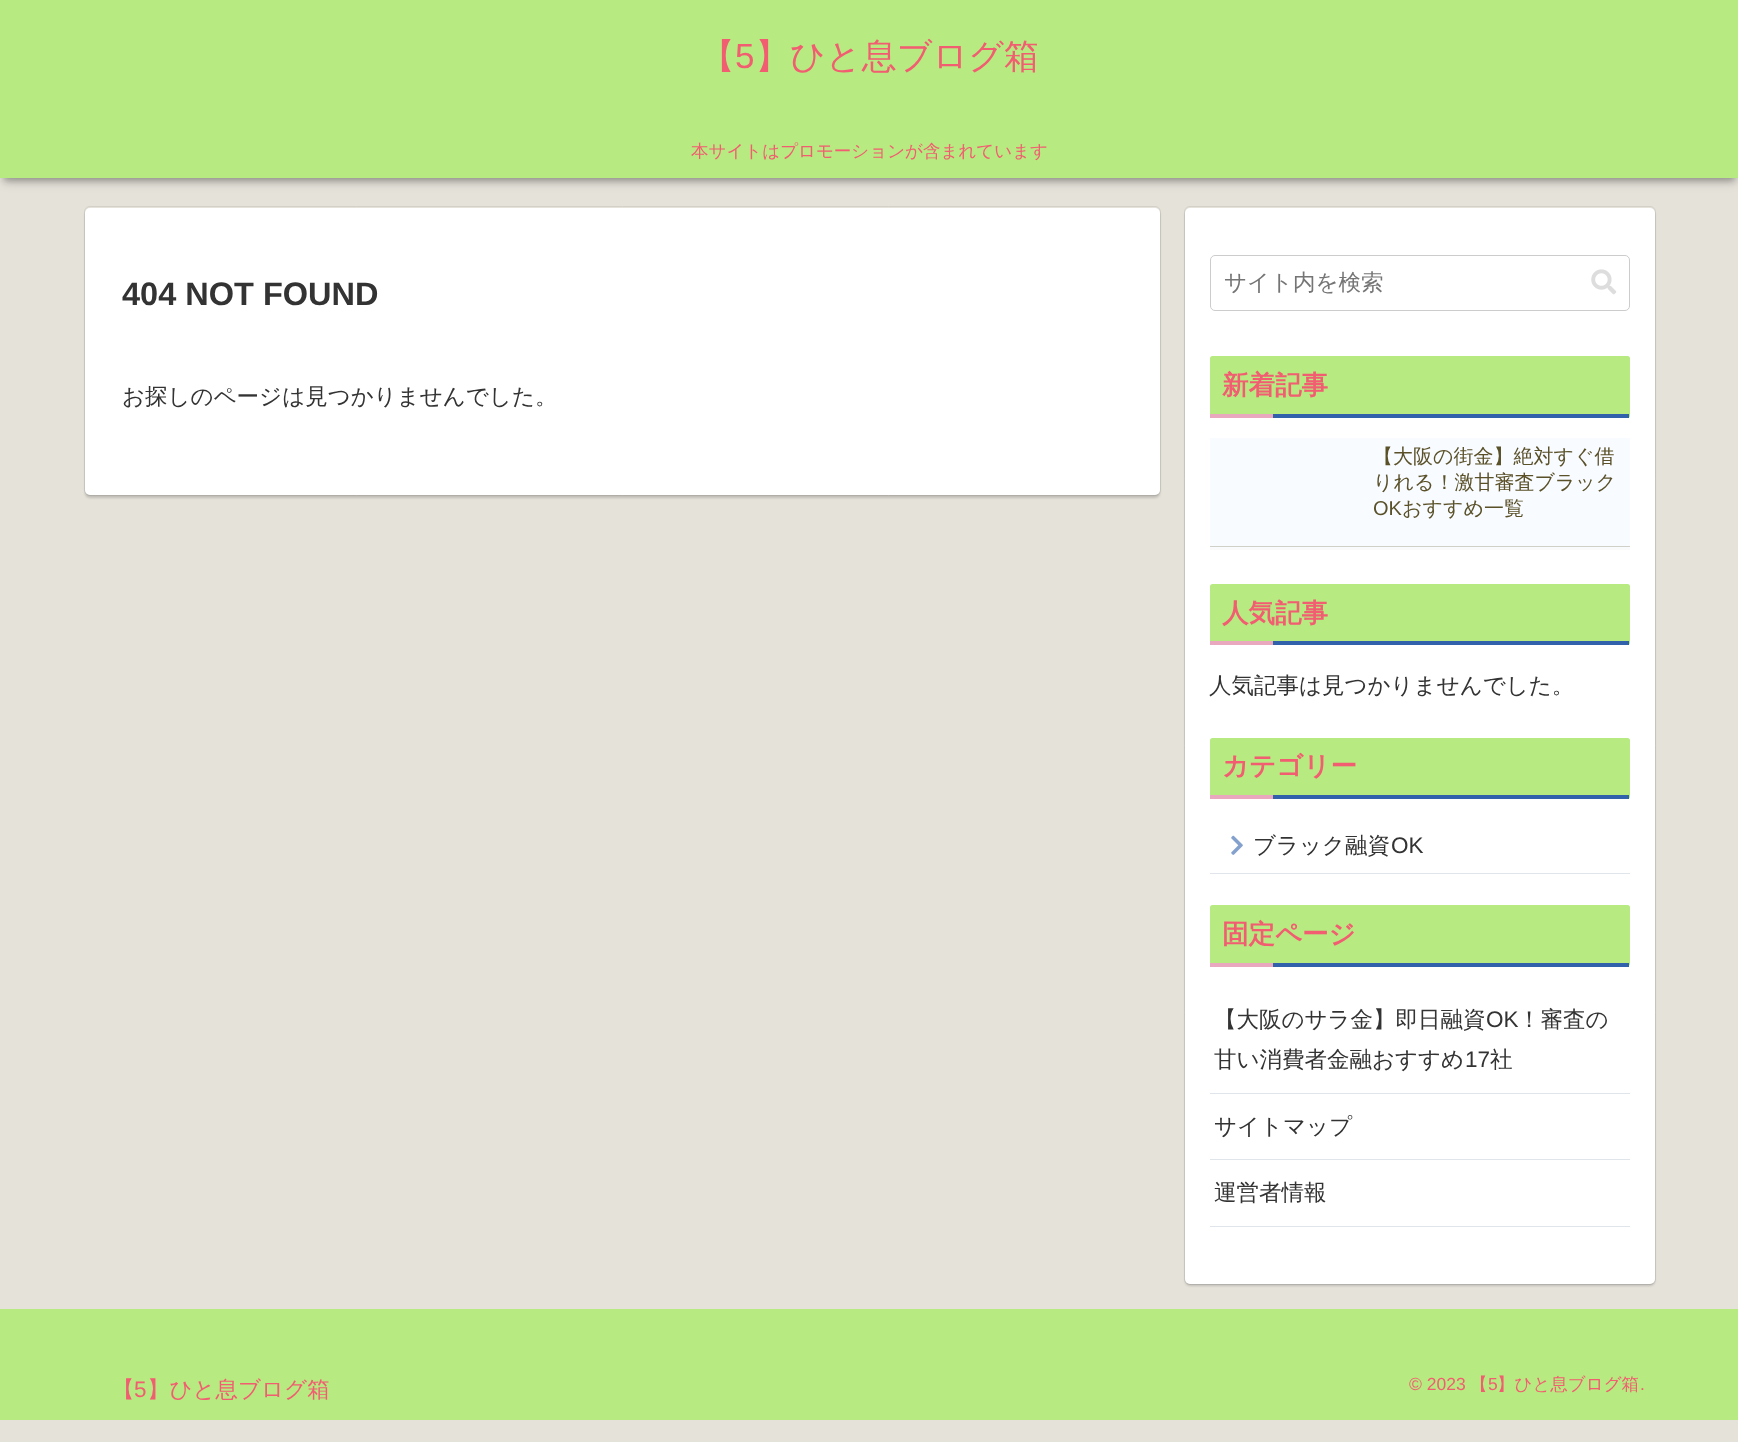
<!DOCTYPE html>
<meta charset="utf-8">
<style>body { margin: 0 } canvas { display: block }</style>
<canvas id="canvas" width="1738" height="1442"></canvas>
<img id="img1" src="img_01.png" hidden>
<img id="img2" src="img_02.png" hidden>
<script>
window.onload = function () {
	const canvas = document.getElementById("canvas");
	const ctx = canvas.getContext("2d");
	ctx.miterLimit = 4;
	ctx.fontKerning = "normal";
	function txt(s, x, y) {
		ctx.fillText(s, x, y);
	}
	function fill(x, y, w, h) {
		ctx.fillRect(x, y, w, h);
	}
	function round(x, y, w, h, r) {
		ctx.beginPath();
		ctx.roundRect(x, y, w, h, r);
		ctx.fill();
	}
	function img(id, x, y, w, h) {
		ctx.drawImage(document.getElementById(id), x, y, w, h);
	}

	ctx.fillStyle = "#E5E2DA";
	fill(0, 0, 1738, 1442);
	ctx.fillStyle = "rgba(0, 0, 0, 0.18)";
	ctx.filter = "blur(6px)";
	ctx.beginPath();
	ctx.rect(4, 11, 1731, 170);
	ctx.fill();
	ctx.filter = "none";
	ctx.fillStyle = "rgba(0, 0, 0, 0.24)";
	ctx.filter = "blur(3px)";
	ctx.beginPath();
	ctx.rect(4, 11, 1731, 170);
	ctx.fill();
	ctx.filter = "none";
	ctx.fillStyle = "#B7EA81";
	fill(0, 0, 1738, 178);
	ctx.beginPath();
	ctx.roundRect(84.5, 206.5, 1076, 289, 5.5);
	ctx.strokeStyle = "#D3D0C9";
	ctx.stroke();
	ctx.fillStyle = "rgba(0, 0, 0, 0.16)";
	ctx.filter = "blur(1px)";
	ctx.beginPath();
	ctx.roundRect(85, 210, 1075, 288, 5);
	ctx.fill();
	ctx.filter = "none";
	ctx.fillStyle = "#FFFFFF";
	round(85, 208, 1075, 287, 5);
	ctx.beginPath();
	ctx.roundRect(1184.5, 206.5, 471, 1078, 5.5);
	ctx.stroke();
	ctx.fillStyle = "rgba(0, 0, 0, 0.16)";
	ctx.filter = "blur(1px)";
	ctx.beginPath();
	ctx.roundRect(1185, 210, 470, 1076, 5);
	ctx.fill();
	ctx.filter = "none";
	ctx.fillStyle = "#FFFFFF";
	round(1185, 208, 470, 1076, 5);
	ctx.beginPath();
	ctx.roundRect(1210.5, 255.5, 419, 55, 4.5);
	ctx.strokeStyle = "#CCCCCC";
	ctx.stroke();
	img("img1", 1591, 269, 26, 26);
	ctx.fillStyle = "#B7EA81";
	round(1210, 356, 420, 62, 2.5);
	ctx.fillStyle = "#3261AB";
	fill(1273, 414, 356, 4);
	ctx.fillStyle = "#EAA8BF";
	fill(1210, 414, 63, 4);
	ctx.fillStyle = "#FBFAFA";
	fill(1210, 548, 420, 2);
	ctx.fillStyle = "#F8FBFF";
	fill(1210, 438, 420, 110);
	ctx.fillStyle = "#D0D0C7";
	fill(1210, 546, 420, 1);
	ctx.fillStyle = "#B7EA81";
	round(1210, 584, 420, 61, 2.5);
	ctx.fillStyle = "#3261AB";
	fill(1273, 641, 356, 4);
	ctx.fillStyle = "#EAA8BF";
	fill(1210, 641, 63, 4);
	ctx.fillStyle = "#B7EA81";
	round(1210, 738, 420, 61, 2.5);
	ctx.fillStyle = "#3261AB";
	fill(1273, 795, 356, 4);
	ctx.fillStyle = "#EAA8BF";
	fill(1210, 795, 63, 4);
	ctx.fillStyle = "#E0E5EC";
	fill(1210, 873, 420, 1);
	img("img2", 1231, 835, 12, 20);
	ctx.fillStyle = "#B7EA81";
	round(1210, 905, 420, 61, 2.5);
	ctx.fillStyle = "#3261AB";
	fill(1273, 963, 356, 4);
	ctx.fillStyle = "#EAA8BF";
	fill(1210, 963, 63, 4);
	ctx.fillStyle = "#E0E5EC";
	fill(1210, 1093, 420, 1);
	fill(1210, 1159, 420, 1);
	fill(1210, 1226, 420, 1);
	ctx.fillStyle = "#B7EA81";
	fill(0, 1309, 1738, 111);
	ctx.font = "500 35px WenQuanYi Zen Hei";
	ctx.fillStyle = "#F25D71";
	txt("【", 700, 68);
	ctx.font = "35px Liberation Sans";
	txt("5", 735, 68);
	ctx.font = "500 35px WenQuanYi Zen Hei";
	txt("】ひと息ブログ箱", 755, 68);
	ctx.font = "500 17.5px WenQuanYi Zen Hei";
	txt("本サイトはプロモーションが含まれています", 691, 157);
	ctx.font = "bold 32.5px Liberation Sans";
	ctx.fillStyle = "#333333";
	txt("404 NOT FOUND", 122, 305);
	ctx.font = "500 22.5px WenQuanYi Zen Hei";
	txt("お探しのページは見つかりませんでした。", 122, 404);
	ctx.fillStyle = "#757575";
	txt("サイト内を検索", 1224, 290);
	ctx.font = "bold 26.5px WenQuanYi Zen Hei";
	ctx.fillStyle = "#F25D71";
	txt("新着記事", 1222, 394);
	ctx.font = "500 20px WenQuanYi Zen Hei";
	ctx.fillStyle = "#5A5129";
	txt("【大阪の街金】絶対すぐ借", 1373, 463);
	txt("りれる！激甘審査ブラック", 1373, 489);
	ctx.font = "20px Liberation Sans";
	txt("OK", 1373, 515);
	ctx.font = "500 20px WenQuanYi Zen Hei";
	txt("おすすめ一覧", 1402, 515);
	ctx.font = "bold 26.5px WenQuanYi Zen Hei";
	ctx.fillStyle = "#F25D71";
	txt("人気記事", 1222, 622);
	ctx.font = "500 22.5px WenQuanYi Zen Hei";
	ctx.fillStyle = "#333333";
	txt("人気記事は見つかりませんでした。", 1209, 693);
	ctx.font = "bold 26.5px WenQuanYi Zen Hei";
	ctx.fillStyle = "#F25D71";
	txt("カテゴリー", 1222, 775);
	ctx.font = "500 22.5px WenQuanYi Zen Hei";
	ctx.fillStyle = "#333333";
	txt("ブラック融資", 1253, 853);
	ctx.font = "22.5px Liberation Sans";
	txt("OK", 1391, 853);
	ctx.font = "bold 26.5px WenQuanYi Zen Hei";
	ctx.fillStyle = "#F25D71";
	txt("固定ページ", 1222, 943);
	ctx.font = "500 22.5px WenQuanYi Zen Hei";
	ctx.fillStyle = "#333333";
	txt("【大阪のサラ金】即日融資", 1214, 1027);
	ctx.font = "22.5px Liberation Sans";
	txt("OK", 1486, 1027);
	ctx.font = "500 22.5px WenQuanYi Zen Hei";
	txt("！審査の", 1518, 1027);
	txt("甘い消費者金融おすすめ", 1214, 1067);
	ctx.font = "22.5px Liberation Sans";
	txt("17", 1465, 1067);
	ctx.font = "500 22.5px WenQuanYi Zen Hei";
	txt("社", 1490, 1067);
	txt("サイトマップ", 1214, 1134);
	txt("運営者情報", 1214, 1200);
	ctx.fillStyle = "#F25D71";
	txt("【", 112, 1397);
	ctx.font = "22.5px Liberation Sans";
	txt("5", 134, 1397);
	ctx.font = "500 22.5px WenQuanYi Zen Hei";
	txt("】ひと息ブログ箱", 147, 1397);
	ctx.font = "17.5px Liberation Sans";
	txt("© 2023", 1409, 1390);
	ctx.font = "500 17.5px WenQuanYi Zen Hei";
	txt("【", 1470, 1390);
	ctx.font = "17.5px Liberation Sans";
	txt("5", 1488, 1390);
	ctx.font = "500 17.5px WenQuanYi Zen Hei";
	txt("】ひと息ブログ箱", 1497, 1390);
	ctx.font = "17.5px Liberation Sans";
	txt(".", 1640, 1390);
};
</script>
